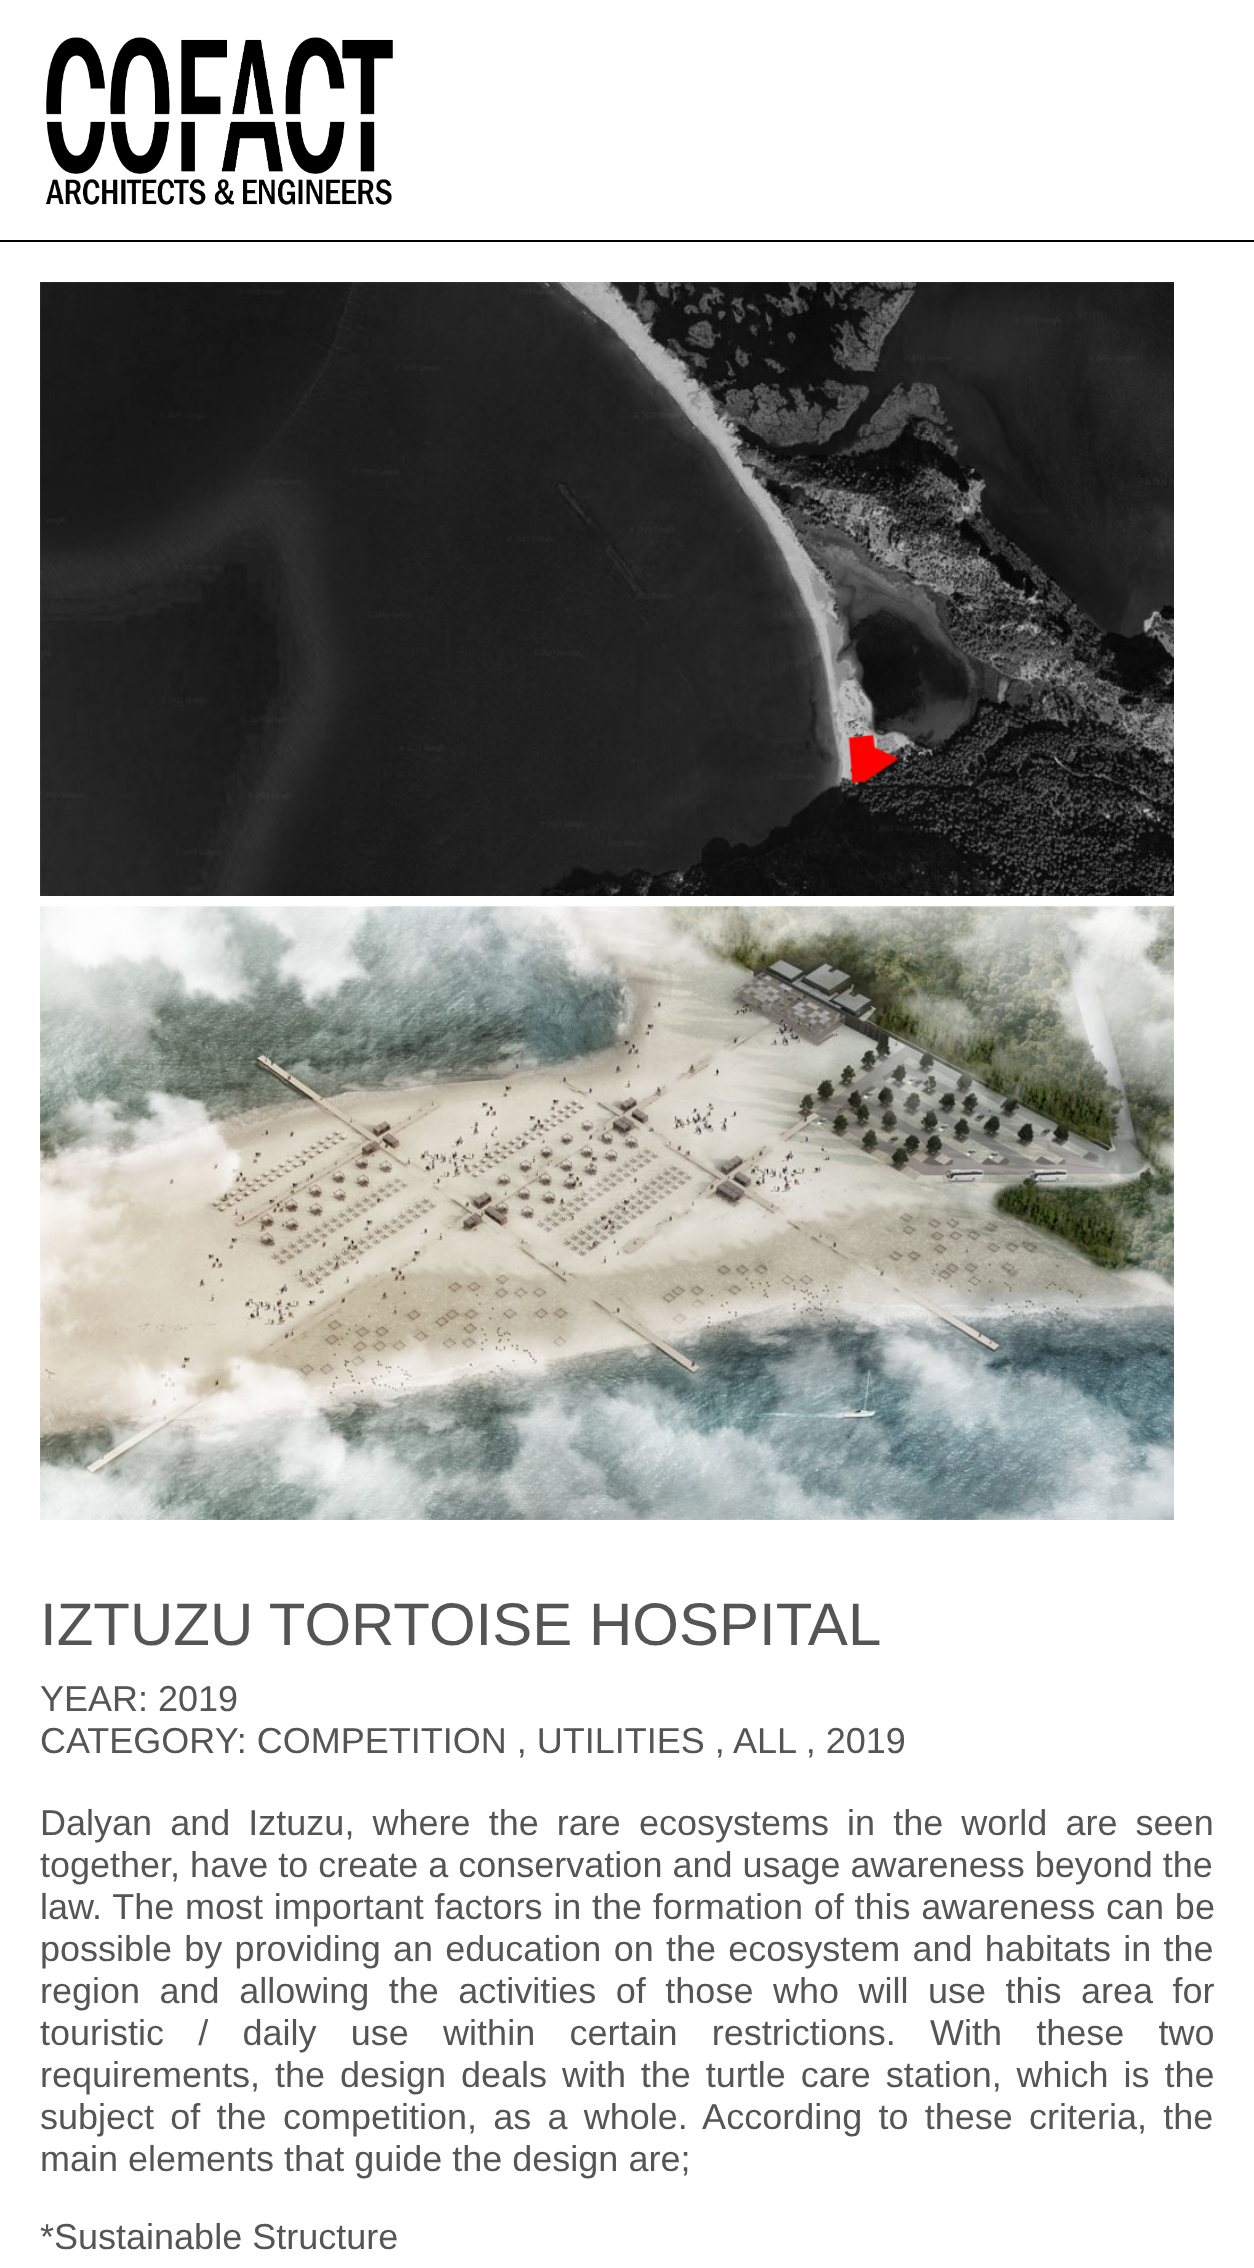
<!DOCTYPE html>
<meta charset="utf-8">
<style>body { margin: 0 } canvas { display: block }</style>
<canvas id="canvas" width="1254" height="2268"></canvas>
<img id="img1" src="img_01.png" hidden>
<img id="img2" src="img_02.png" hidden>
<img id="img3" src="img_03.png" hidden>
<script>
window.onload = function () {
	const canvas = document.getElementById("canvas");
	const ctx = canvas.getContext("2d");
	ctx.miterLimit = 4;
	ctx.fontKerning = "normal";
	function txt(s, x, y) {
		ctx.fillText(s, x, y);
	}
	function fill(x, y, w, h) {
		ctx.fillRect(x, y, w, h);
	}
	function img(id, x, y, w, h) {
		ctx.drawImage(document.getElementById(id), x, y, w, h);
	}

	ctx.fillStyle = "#FFFFFF";
	fill(0, 0, 1254, 2268);
	ctx.fillStyle = "#000000";
	fill(0, 240, 1254, 2);
	img("img1", 45, 37, 348, 168);
	img("img2", 40, 282, 1134, 614);
	img("img3", 40, 906, 1134, 614);
	ctx.font = "60px Liberation Sans";
	ctx.fillStyle = "#555555";
	txt("IZTUZU TORTOISE HOSPITAL", 40, 1645);
	ctx.font = "36px Liberation Sans";
	txt("YEAR: 2019", 40, 1711);
	txt("CATEGORY: COMPETITION , UTILITIES ,", 40, 1753);
	txt("ALL , 2019", 733, 1753);
	ctx.wordSpacing = "8.1px";
	txt("Dalyan and Iztuzu, where the rare ecosystems in the world are seen", 40, 1835);
	ctx.wordSpacing = "0px";
	txt("together, have to create a conservation and usage awareness beyond the", 40, 1877);
	ctx.wordSpacing = "0.75px";
	txt("law. The most important factors in the formation of this awareness can be", 40, 1919);
	ctx.wordSpacing = "2.25px";
	txt("possible by providing an education on the ecosystem and habitats in the", 40, 1961);
	ctx.wordSpacing = "9.5px";
	txt("region and allowing the activities of those who will use this area for", 40, 2003);
	ctx.wordSpacing = "24.25px";
	txt("touristic / daily use within certain restrictions. With these two", 40, 2045);
	ctx.wordSpacing = "4.9px";
	txt("requirements, the design deals with the turtle care station, which is the", 40, 2087);
	ctx.wordSpacing = "6.25px";
	txt("subject of the competition, as a whole. According to these criteria, the", 40, 2129);
	ctx.wordSpacing = "0px";
	txt("main elements that guide the design are;", 40, 2171);
	txt("*Sustainable Structure", 40, 2249);
};
</script>
